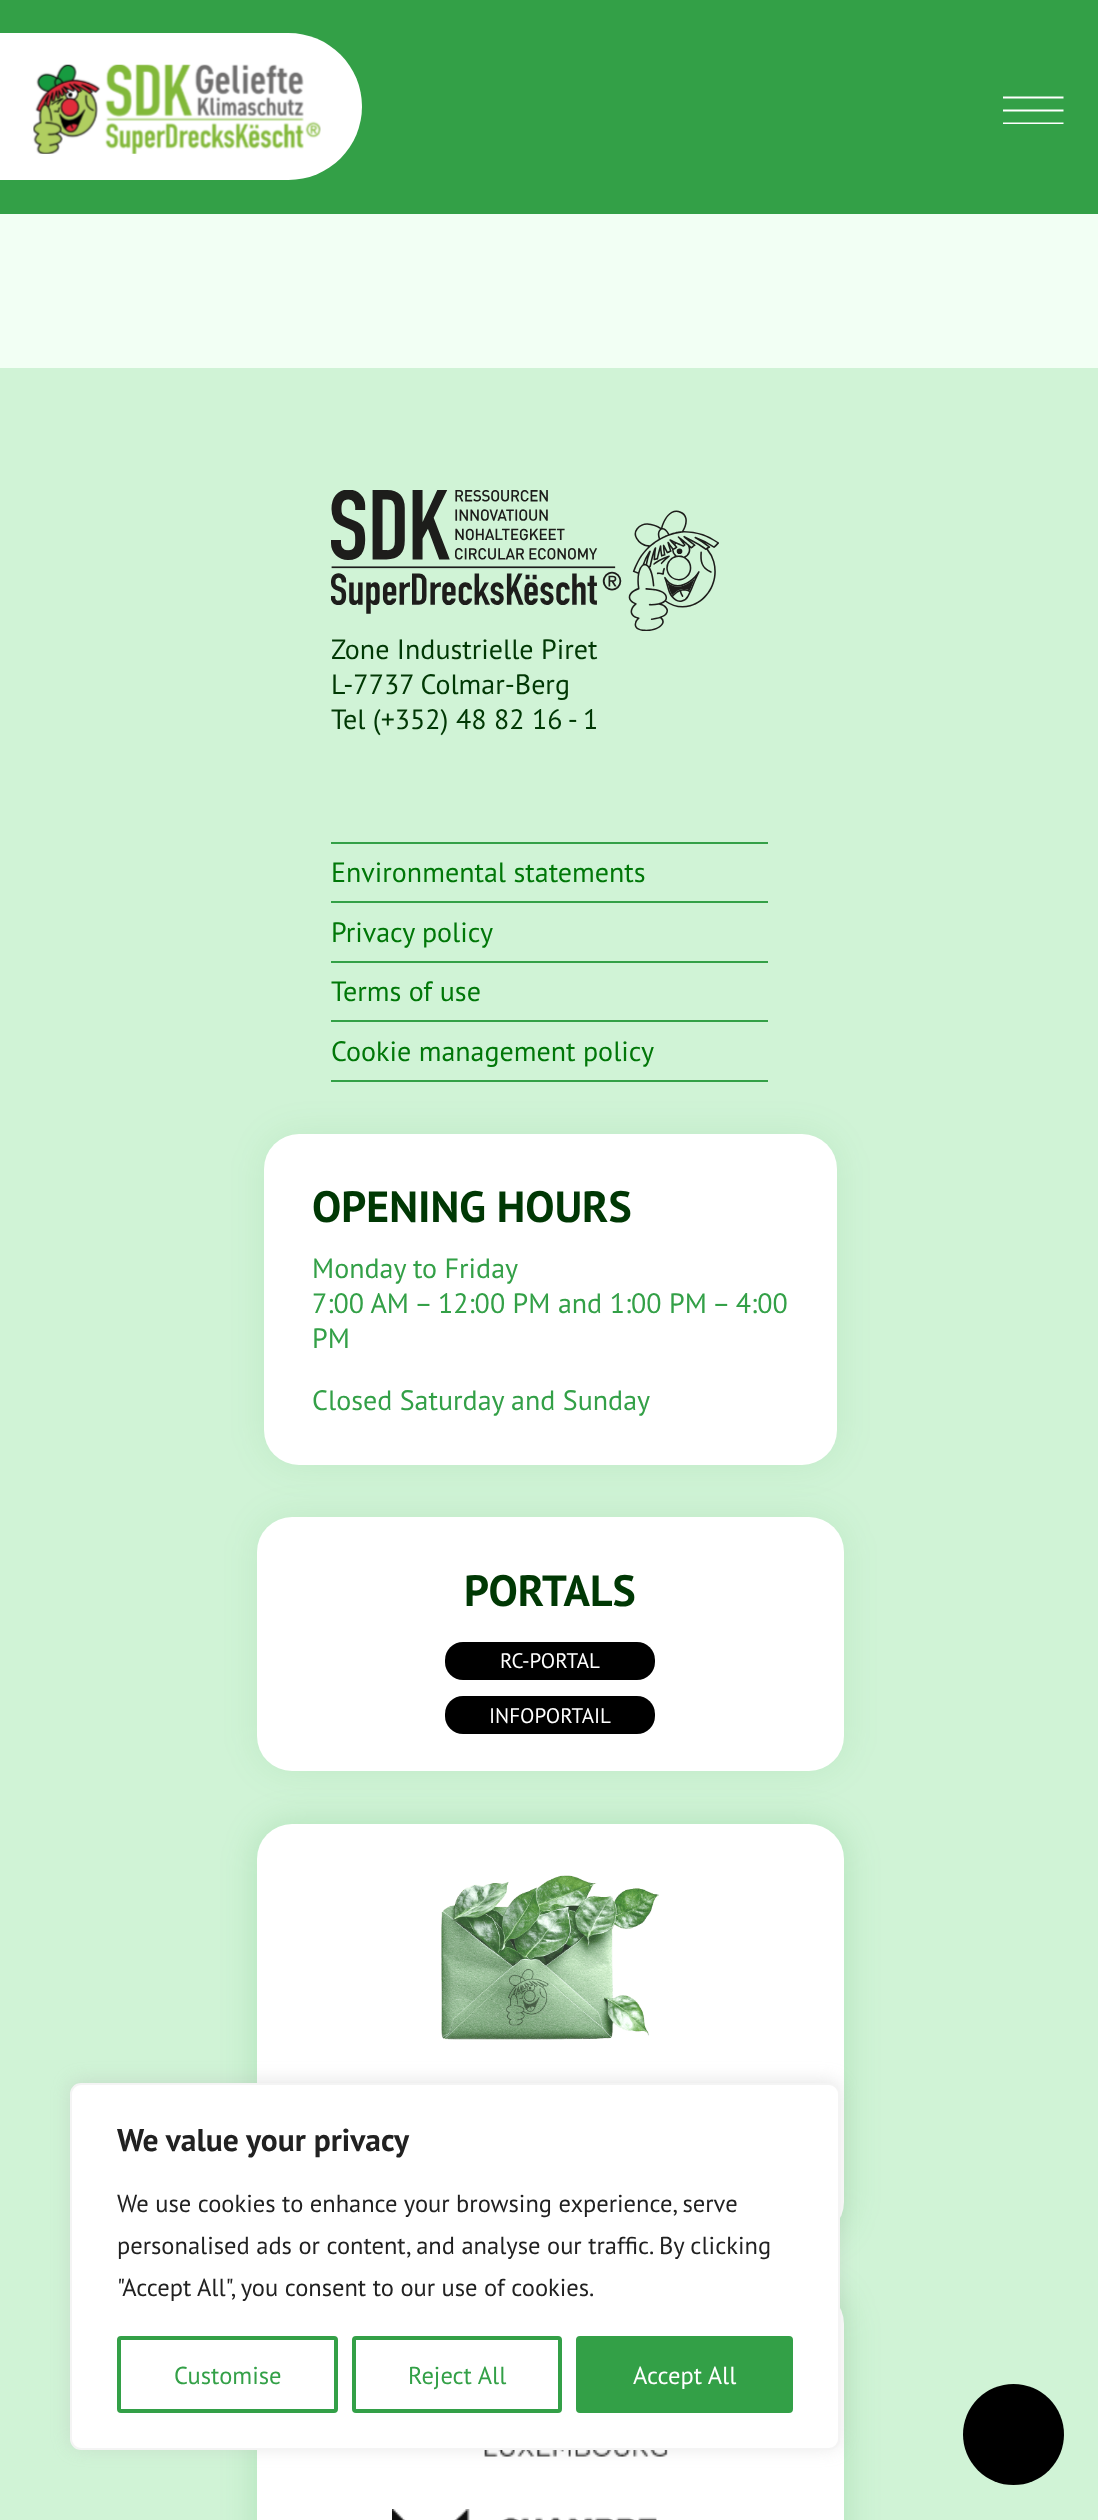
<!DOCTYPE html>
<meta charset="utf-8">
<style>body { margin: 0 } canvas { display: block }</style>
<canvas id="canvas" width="1098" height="2520"></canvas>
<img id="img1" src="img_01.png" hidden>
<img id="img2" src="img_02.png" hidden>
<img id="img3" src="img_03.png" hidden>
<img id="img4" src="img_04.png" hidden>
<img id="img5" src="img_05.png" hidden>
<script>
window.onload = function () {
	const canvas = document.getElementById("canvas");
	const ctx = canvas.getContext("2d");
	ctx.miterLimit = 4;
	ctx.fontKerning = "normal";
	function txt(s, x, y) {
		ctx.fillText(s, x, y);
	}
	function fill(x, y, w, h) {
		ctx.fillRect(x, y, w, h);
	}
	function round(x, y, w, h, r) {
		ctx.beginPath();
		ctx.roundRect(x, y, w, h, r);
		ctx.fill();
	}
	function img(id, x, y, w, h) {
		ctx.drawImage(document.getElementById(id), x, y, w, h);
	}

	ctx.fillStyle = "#D0F3D6";
	fill(0, 0, 1098, 2520);
	ctx.fillStyle = "#33A047";
	fill(0, 0, 1098, 214);
	ctx.fillStyle = "#FFFFFF";
	ctx.beginPath();
	ctx.roundRect(0, 33, 362, 147, [0, 73.5, 73.5, 0]);
	ctx.fill();
	img("img1", 33, 64, 288, 90);
	ctx.beginPath();
	ctx.moveTo(1003, 97.5);
	ctx.lineTo(1063.5, 97.5);
	ctx.moveTo(1003, 110.5);
	ctx.lineTo(1063.5, 110.5);
	ctx.strokeStyle = "#FFFFFF";
	ctx.lineWidth = 2;
	ctx.stroke();
	ctx.save();
	ctx.beginPath();
	ctx.rect(1003, 96, 61, 28);
	ctx.clip();
	ctx.beginPath();
	ctx.moveTo(1003, 123.5);
	ctx.lineTo(1063.5, 123.5);
	ctx.stroke();
	ctx.restore();
	ctx.fillStyle = "#F2FFF4";
	fill(0, 214, 1098, 154);
	img("img2", 331, 490, 388, 141);
	ctx.fillStyle = "#33A047";
	fill(331, 842, 437, 2);
	fill(331, 901, 437, 2);
	fill(331, 961, 437, 2);
	fill(331, 1020, 437, 2);
	fill(331, 1080, 437, 2);
	ctx.fillStyle = "rgba(51, 160, 71, 0.1)";
	ctx.filter = "blur(17.5px)";
	ctx.beginPath();
	ctx.roundRect(264, 1134, 573, 331, 35);
	ctx.fill();
	ctx.filter = "none";
	ctx.fillStyle = "#FFFFFF";
	round(264, 1134, 573, 331, 35);
	ctx.fillStyle = "rgba(51, 160, 71, 0.1)";
	ctx.filter = "blur(17.5px)";
	ctx.beginPath();
	ctx.roundRect(257, 1517, 587, 254, 35);
	ctx.fill();
	ctx.filter = "none";
	ctx.fillStyle = "#FFFFFF";
	round(257, 1517, 587, 254, 35);
	ctx.fillStyle = "#000000";
	round(445, 1642, 210, 38, 18);
	round(445, 1696, 210, 38, 18);
	ctx.fillStyle = "rgba(51, 160, 71, 0.2)";
	ctx.filter = "blur(17.5px)";
	ctx.beginPath();
	ctx.roundRect(257, 2289, 587, 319, 35);
	ctx.fill();
	ctx.filter = "none";
	ctx.fillStyle = "#FFFFFF";
	round(257, 2289, 587, 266, 35);
	ctx.fillStyle = "rgba(51, 160, 71, 0.2)";
	ctx.filter = "blur(17.5px)";
	ctx.beginPath();
	ctx.roundRect(257, 1824, 587, 413, 35);
	ctx.fill();
	ctx.filter = "none";
	ctx.fillStyle = "#FFFFFF";
	round(257, 1824, 587, 413, 35);
	img("img3", 441, 1875, 218, 165);
	img("img4", 484, 2450, 184, 7);
	img("img5", 392, 2509, 265, 11);
	ctx.fillStyle = "rgba(172, 171, 171, 0.3)";
	ctx.filter = "blur(9px)";
	ctx.beginPath();
	ctx.roundRect(70, 2081, 770, 367, 11);
	ctx.fill();
	ctx.filter = "none";
	ctx.fillStyle = "#FFFFFF";
	ctx.beginPath();
	ctx.roundRect(71, 2084, 768, 365, 10);
	ctx.fill();
	ctx.strokeStyle = "#F4F4F4";
	ctx.stroke();
	ctx.beginPath();
	ctx.roundRect(119, 2338, 217, 73, 2);
	ctx.strokeStyle = "#33A047";
	ctx.lineWidth = 4;
	ctx.stroke();
	ctx.beginPath();
	ctx.roundRect(354, 2338, 206, 73, 2);
	ctx.stroke();
	ctx.fillStyle = "#33A047";
	ctx.beginPath();
	ctx.roundRect(578, 2338, 213, 73, 2);
	ctx.fill();
	ctx.stroke();
	ctx.fillStyle = "#000000";
	ctx.beginPath();
	ctx.arc(1013.5, 2434.5, 50.5, 0, Math.PI * 2);
	ctx.fill();
	ctx.font = "28px PT Sans";
	ctx.fillStyle = "#003804";
	txt("Zone Industrielle Piret", 331, 659);
	txt("L-7737 Colmar-Berg", 331, 694);
	txt("Tel (+352) 48 82 16 - 1", 331, 729);
	ctx.fillStyle = "#007708";
	txt("Environmental statements", 331, 882);
	txt("Privacy policy", 331, 942);
	txt("Terms of use", 331, 1001);
	txt("Cookie management policy", 331, 1061);
	ctx.font = "bold 43.75px PT Sans";
	ctx.fillStyle = "#003804";
	txt("OPENING HOURS", 312, 1222);
	ctx.font = "28px PT Sans";
	ctx.fillStyle = "#33A047";
	txt("Monday to Friday", 312, 1278);
	txt("7:00 AM – 12:00 PM and 1:00 PM – 4:00", 312, 1313);
	txt("PM", 312, 1348);
	txt("Closed Saturday and Sunday", 312, 1410);
	ctx.font = "bold 43.75px PT Sans";
	ctx.fillStyle = "#003804";
	txt("PORTALS", 464, 1606);
	ctx.font = "21px PT Sans";
	ctx.fillStyle = "#FFFFFF";
	txt("RC-PORTAL", 500, 1668);
	txt("INFOPORTAIL", 489, 1723);
	ctx.font = "bold 31.5px PT Sans";
	ctx.fillStyle = "#212121";
	txt("We value your privacy", 117, 2151);
	ctx.font = "24.5px PT Sans";
	txt("We use cookies to enhance your browsing experience, serve", 117, 2212);
	txt("personalised ads or content, and analyse our traffic. By clicking", 117, 2254);
	txt("\"Accept All\", you consent to our use of cookies.", 117, 2296);
	ctx.fillStyle = "#33A047";
	txt("Customise", 174, 2384);
	txt("Reject All", 408, 2384);
	ctx.fillStyle = "#FFFFFF";
	txt("Accept All", 633, 2384);
};
</script>
